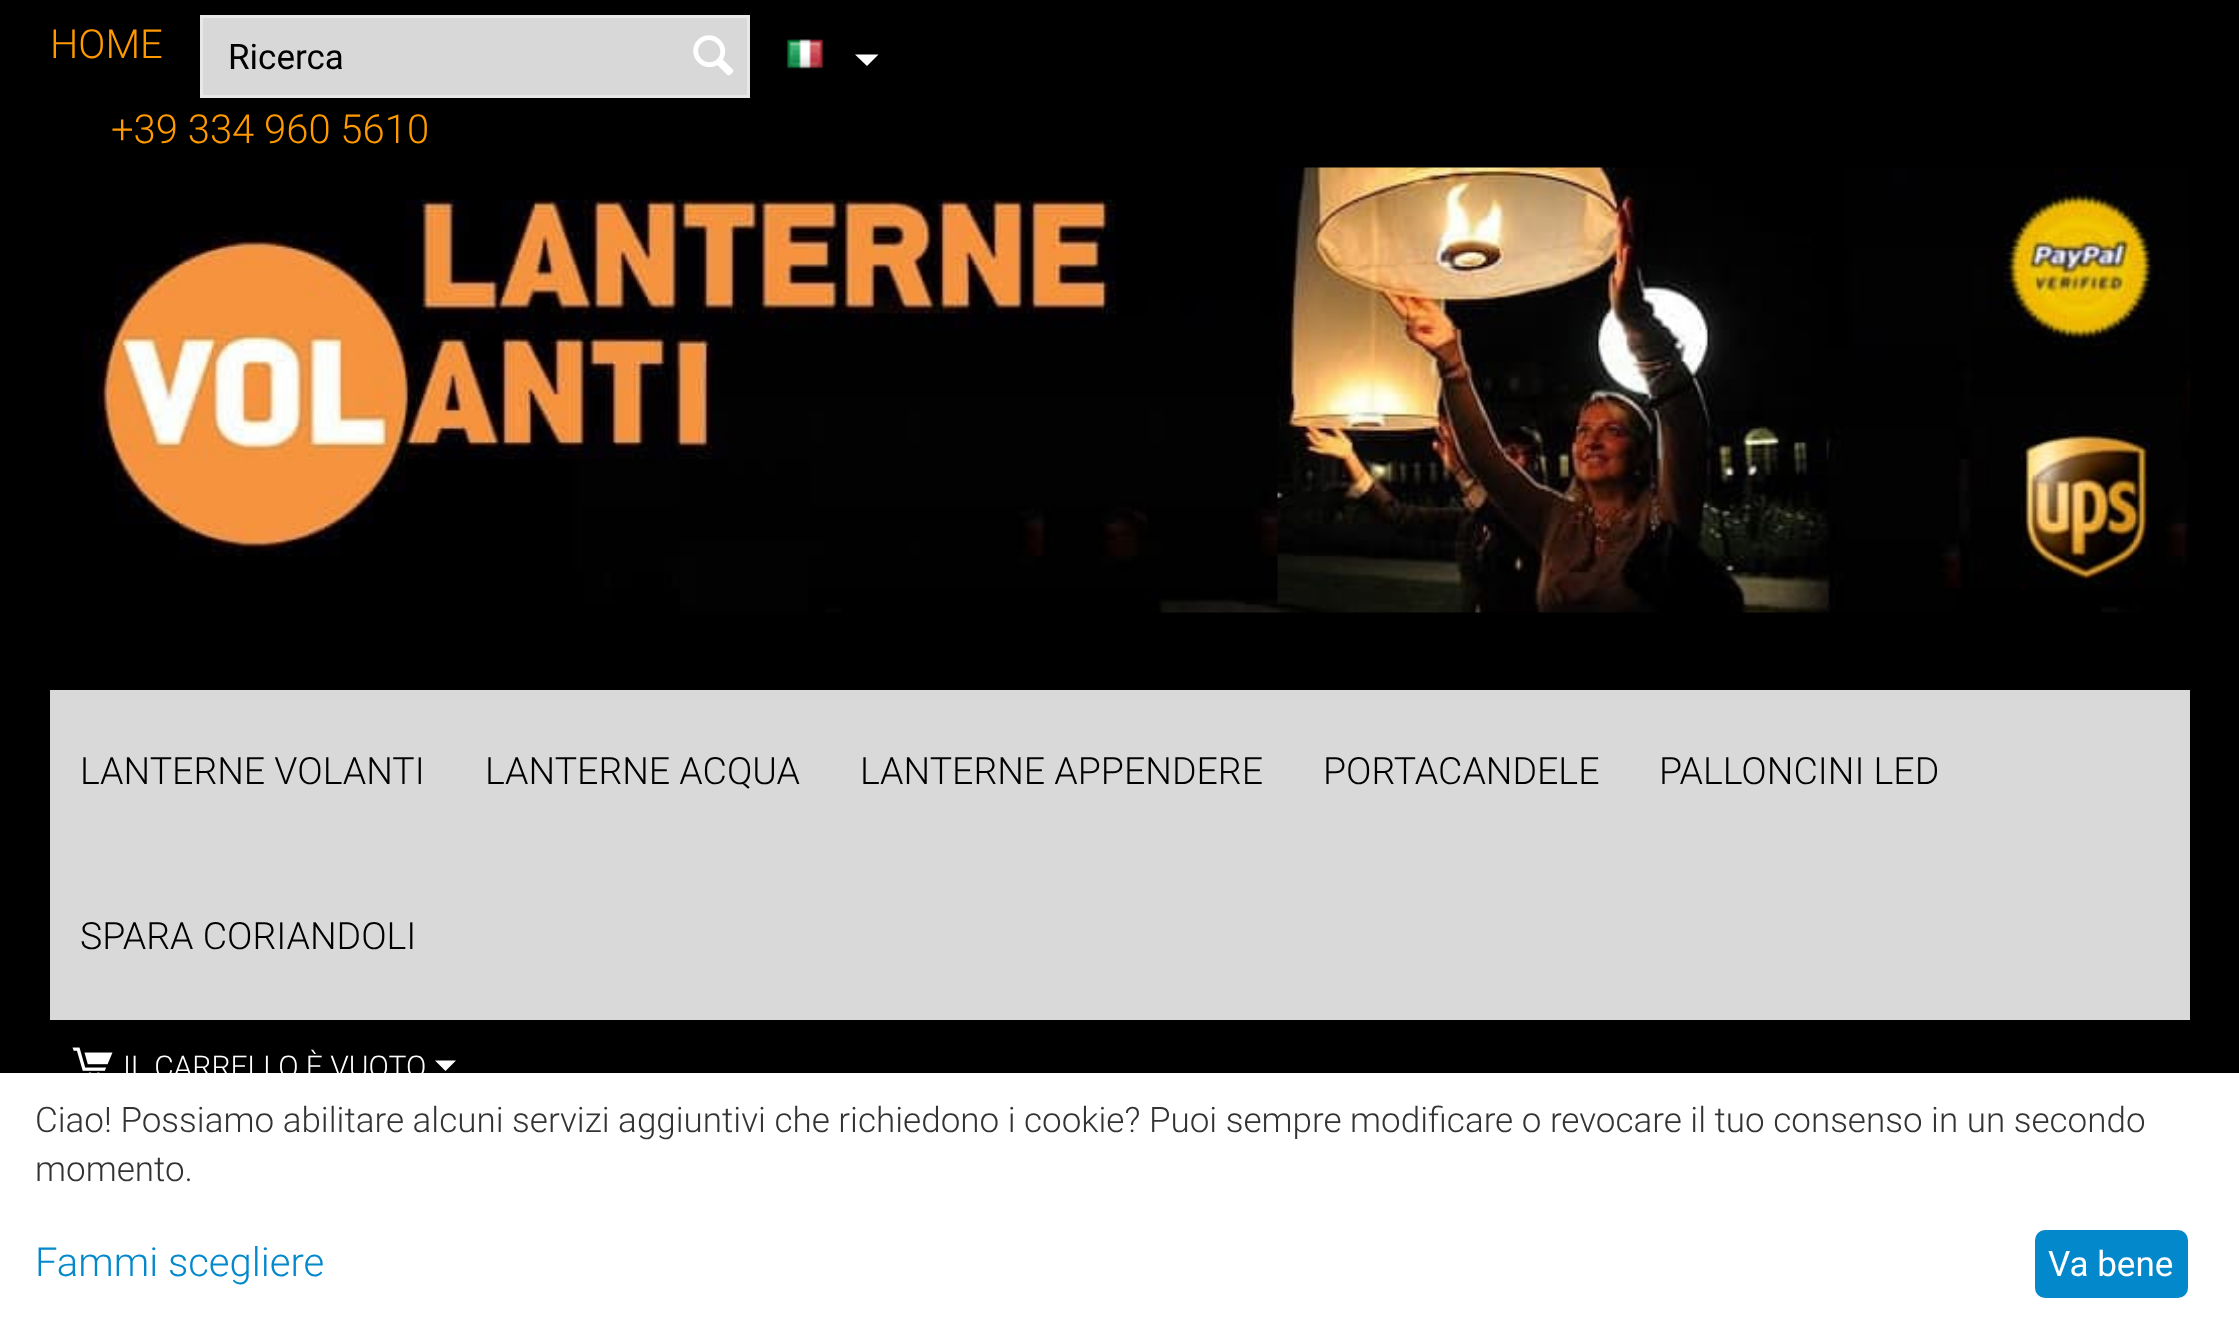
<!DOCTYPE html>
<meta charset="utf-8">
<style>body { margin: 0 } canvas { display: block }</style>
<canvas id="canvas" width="2239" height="1332"></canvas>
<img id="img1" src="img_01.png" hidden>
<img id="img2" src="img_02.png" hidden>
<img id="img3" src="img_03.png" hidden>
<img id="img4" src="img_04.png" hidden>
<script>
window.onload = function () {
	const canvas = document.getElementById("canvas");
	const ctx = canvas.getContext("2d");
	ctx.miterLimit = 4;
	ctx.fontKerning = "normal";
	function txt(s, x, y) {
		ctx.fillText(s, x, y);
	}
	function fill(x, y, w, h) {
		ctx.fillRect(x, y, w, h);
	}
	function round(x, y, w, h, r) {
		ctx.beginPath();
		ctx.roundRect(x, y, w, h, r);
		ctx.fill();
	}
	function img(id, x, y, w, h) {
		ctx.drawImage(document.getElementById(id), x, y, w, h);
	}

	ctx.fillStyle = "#000000";
	fill(0, 0, 2239, 1332);
	ctx.fillStyle = "#D8D8D8";
	ctx.beginPath();
	ctx.rect(201.5, 16.5, 547, 80);
	ctx.fill();
	ctx.strokeStyle = "#E8E8E8";
	ctx.lineWidth = 3;
	ctx.stroke();
	img("img1", 693, 35, 41, 41);
	img("img2", 786, 39, 38, 30);
	ctx.fillStyle = "#FFFFFF";
	ctx.beginPath();
	ctx.moveTo(867, 66);
	ctx.lineTo(855, 54.5);
	ctx.lineTo(878.5, 54.5);
	ctx.closePath();
	ctx.fill();
	img("img3", 82, 167, 2108, 446);
	ctx.fillStyle = "#D9D9D9";
	fill(50, 690, 2140, 330);
	img("img4", 72, 1047, 41, 26);
	ctx.fillStyle = "#FFFFFF";
	ctx.beginPath();
	ctx.moveTo(445.5, 1071);
	ctx.lineTo(435, 1060.5);
	ctx.lineTo(456, 1060.5);
	ctx.closePath();
	ctx.fill();
	fill(0, 1073, 2239, 259);
	ctx.fillStyle = "#0388CC";
	round(2035, 1230, 153, 68, 10);
	ctx.font = "300 40px Roboto";
	ctx.fillStyle = "#FF9900";
	txt("HOME", 50, 58);
	ctx.font = "35px Roboto";
	ctx.fillStyle = "#000000";
	txt("Ricerca", 228, 69);
	ctx.font = "300 40px Roboto";
	ctx.fillStyle = "#FF9900";
	txt("+39 334 960 5610", 111, 143);
	ctx.font = "300 37.5px Roboto";
	ctx.fillStyle = "#000000";
	txt("LANTERNE VOLANTI", 80, 784);
	txt("LANTERNE ACQUA", 485, 784);
	txt("LANTERNE APPENDERE", 860, 784);
	txt("PORTACANDELE", 1323, 784);
	txt("PALLONCINI LED", 1659, 784);
	txt("SPARA CORIANDOLI", 80, 949);
	ctx.font = "300 30px Roboto";
	ctx.fillStyle = "#FFFFFF";
	txt("IL CARRELLO È VUOTO", 123, 1077);
	ctx.font = "300 35px Roboto";
	ctx.fillStyle = "#333333";
	txt("Ciao! Possiamo abilitare alcuni servizi aggiuntivi che richiedono i cookie? Puoi sempre modificare o revocare il tuo consenso in un secondo", 35, 1132);
	txt("momento.", 35, 1181);
	ctx.font = "300 40px Roboto";
	ctx.fillStyle = "#0388CC";
	txt("Fammi scegliere", 35, 1276);
	ctx.font = "35px Roboto";
	ctx.fillStyle = "#FFFFFF";
	txt("Va bene", 2048, 1276);
};
</script>
